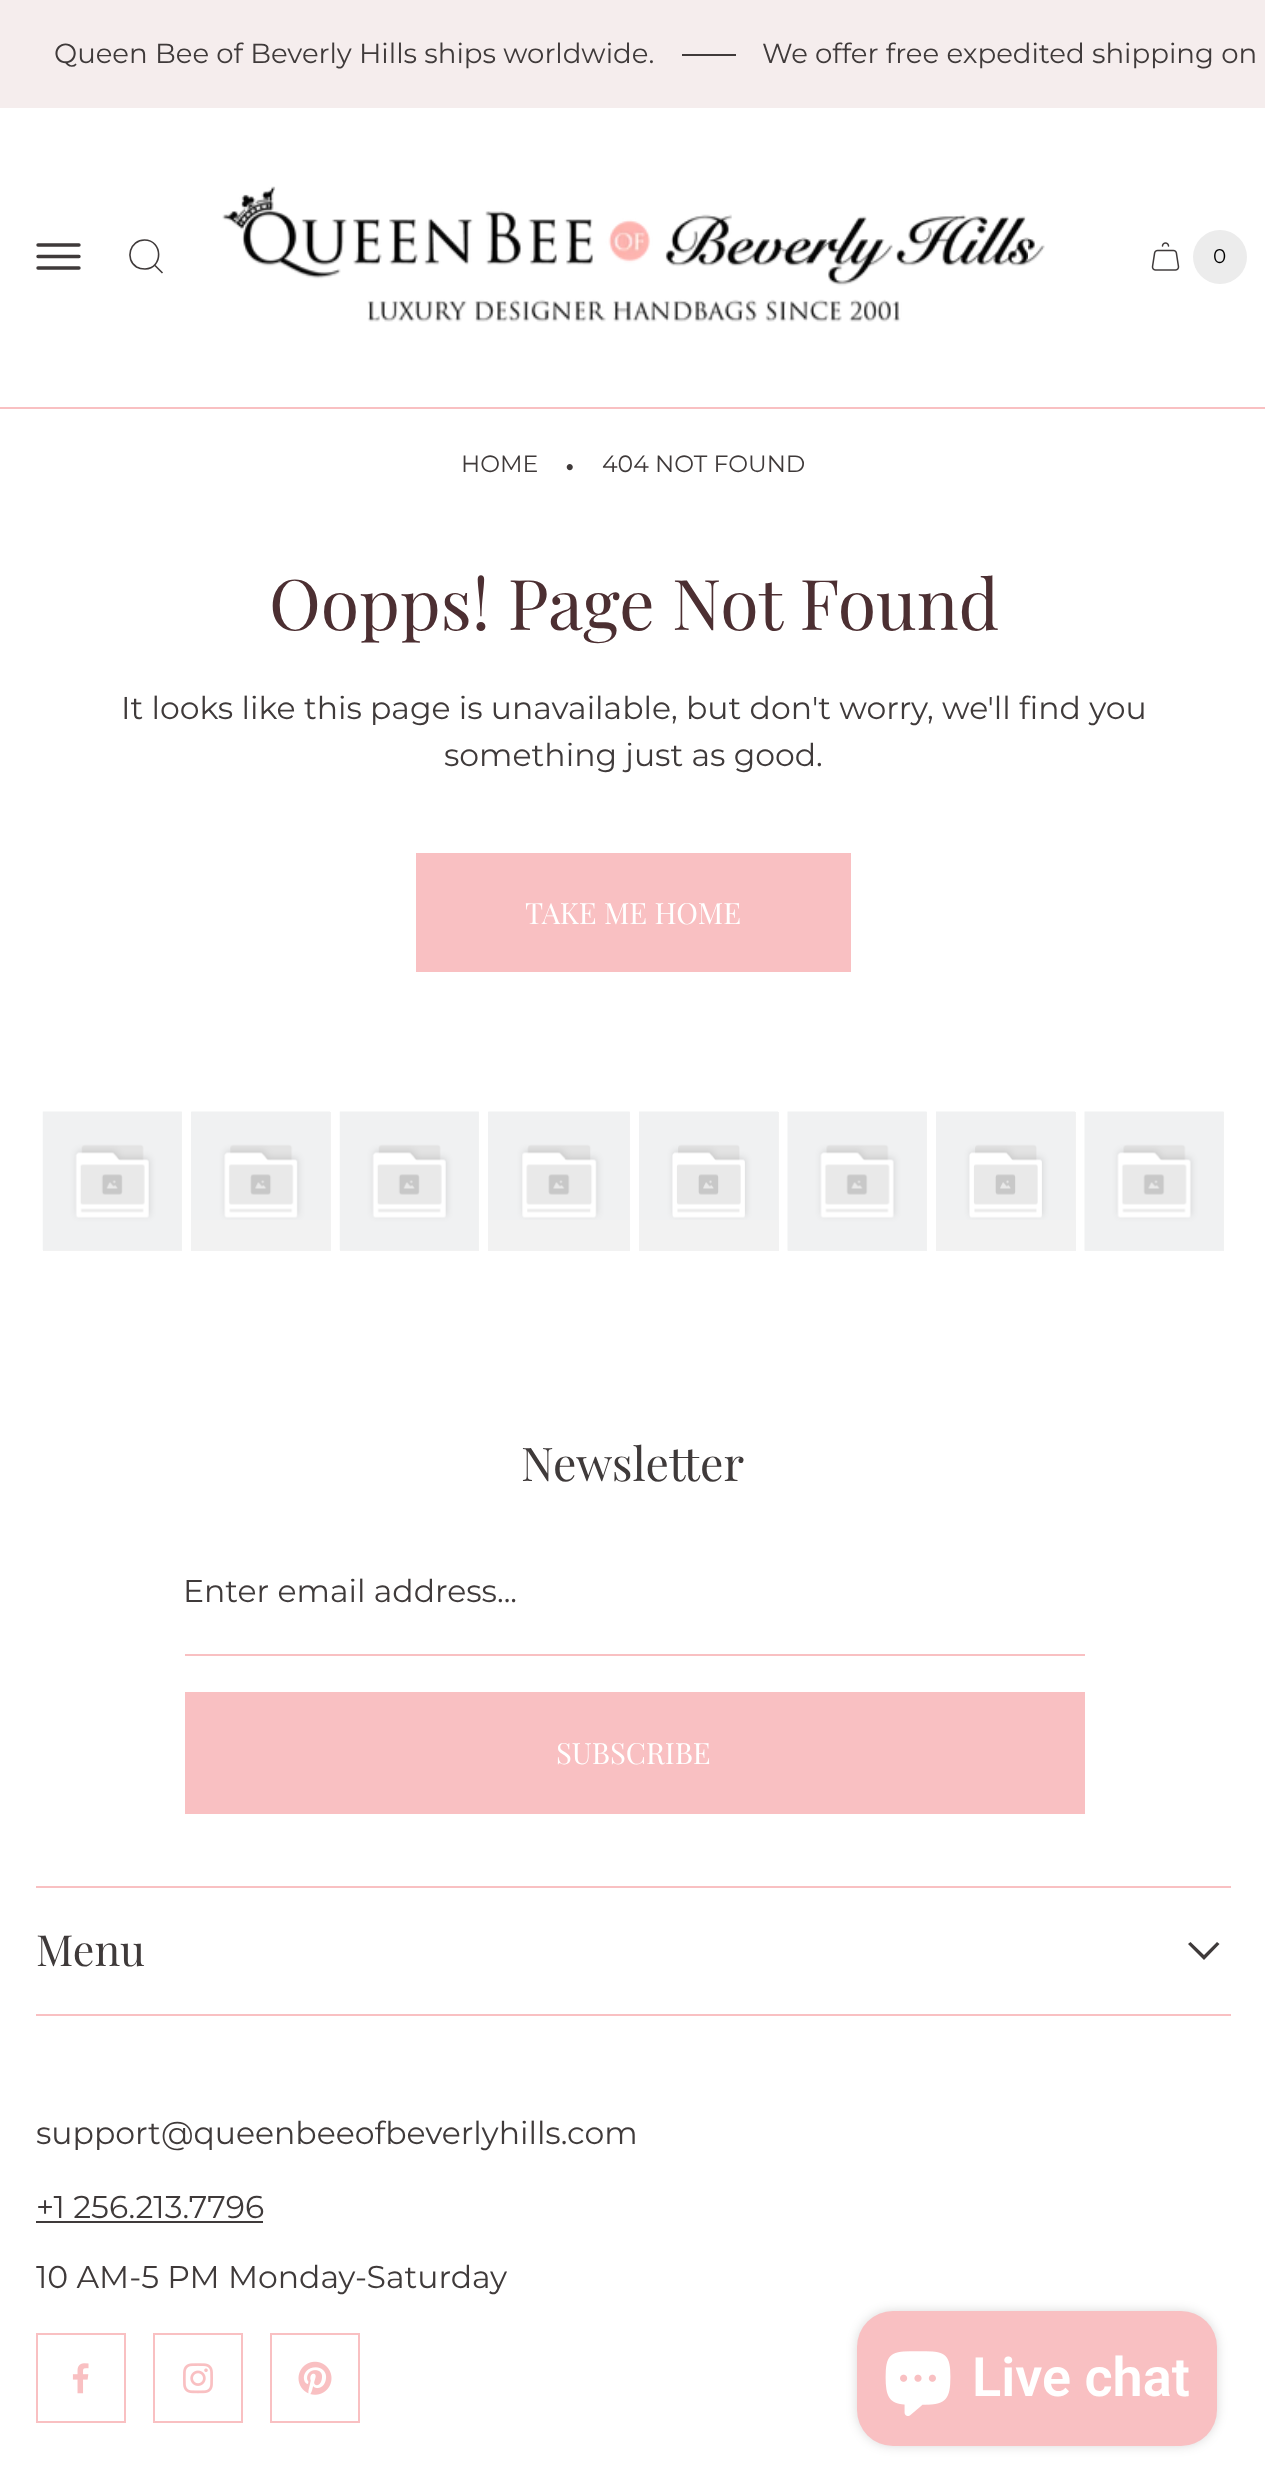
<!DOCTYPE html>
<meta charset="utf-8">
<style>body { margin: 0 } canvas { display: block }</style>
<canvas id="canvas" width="1265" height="2491"></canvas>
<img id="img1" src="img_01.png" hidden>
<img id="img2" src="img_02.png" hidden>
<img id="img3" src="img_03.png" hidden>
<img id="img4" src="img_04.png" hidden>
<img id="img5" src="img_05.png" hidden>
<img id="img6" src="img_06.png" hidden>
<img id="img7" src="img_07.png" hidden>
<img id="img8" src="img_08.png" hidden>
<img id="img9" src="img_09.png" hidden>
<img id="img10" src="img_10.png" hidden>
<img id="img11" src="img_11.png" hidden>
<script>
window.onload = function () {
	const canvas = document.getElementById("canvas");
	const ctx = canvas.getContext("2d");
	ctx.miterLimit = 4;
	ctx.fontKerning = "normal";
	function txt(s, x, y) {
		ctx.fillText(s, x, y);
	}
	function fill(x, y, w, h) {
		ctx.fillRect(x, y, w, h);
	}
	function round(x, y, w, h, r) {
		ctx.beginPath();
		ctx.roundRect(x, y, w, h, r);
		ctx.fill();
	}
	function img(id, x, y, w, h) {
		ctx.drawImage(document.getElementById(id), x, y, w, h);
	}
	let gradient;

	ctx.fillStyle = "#FFFFFF";
	fill(0, 0, 1265, 2491);
	ctx.fillStyle = "#F5EDED";
	fill(0, 0, 1265, 108);
	ctx.fillStyle = "#3F3A3A";
	fill(682, 54, 54, 2);
	ctx.fillStyle = "#F9C0C2";
	fill(0, 407, 1265, 2);
	ctx.beginPath();
	ctx.moveTo(38, 245);
	ctx.lineTo(79, 245);
	ctx.moveTo(38, 256.5);
	ctx.lineTo(79, 256.5);
	ctx.moveTo(38, 268);
	ctx.lineTo(79, 268);
	ctx.strokeStyle = "#3F3A3A";
	ctx.lineWidth = 3.4;
	ctx.lineCap = "round";
	ctx.stroke();
	ctx.beginPath();
	ctx.moveTo(154.5, 265);
	ctx.lineTo(162.5, 273);
	ctx.moveTo(144.5, 240);
	ctx.bezierCurveTo(163, 240, 163.5, 268.5, 145, 269);
	ctx.bezierCurveTo(142, 269, 139, 268.5, 136.5, 267);
	ctx.bezierCurveTo(124.5, 259, 130, 240, 144.5, 240);
	ctx.closePath();
	ctx.lineWidth = 1.6;
	ctx.lineCap = "butt";
	ctx.stroke();
	img("img1", 222, 186, 823, 136);
	img("img2", 1151, 242, 29, 29);
	ctx.fillStyle = "#ECECEC";
	ctx.beginPath();
	ctx.arc(1220, 257, 27, 0, Math.PI * 2);
	ctx.fill();
	ctx.fillStyle = "#F9C0C2";
	fill(416, 853, 435, 119);
	gradient = ctx.createLinearGradient(43, 1188, 601, 1188);
	gradient.addColorStop(0.25, "#F2F2F2");
	gradient.addColorStop(0.37, "#E6E6E6");
	gradient.addColorStop(0.63, "#F2F2F2");
	ctx.fillStyle = gradient;
	fill(43, 1112, 139, 139);
	img("img3", 42, 1111, 140, 139);
	gradient = ctx.createLinearGradient(191, 1188, 749, 1188);
	gradient.addColorStop(0.25, "#F2F2F2");
	gradient.addColorStop(0.37, "#E6E6E6");
	gradient.addColorStop(0.63, "#F2F2F2");
	ctx.fillStyle = gradient;
	fill(191, 1112, 140, 139);
	img("img4", 191, 1111, 139, 109);
	gradient = ctx.createLinearGradient(340, 1188, 898, 1188);
	gradient.addColorStop(0.25, "#F2F2F2");
	gradient.addColorStop(0.37, "#E6E6E6");
	gradient.addColorStop(0.63, "#F2F2F2");
	ctx.fillStyle = gradient;
	fill(340, 1112, 139, 139);
	img("img3", 339, 1111, 140, 139);
	gradient = ctx.createLinearGradient(488, 1188, 1055, 1188);
	gradient.addColorStop(0.25, "#F2F2F2");
	gradient.addColorStop(0.37, "#E6E6E6");
	gradient.addColorStop(0.63, "#F2F2F2");
	ctx.fillStyle = gradient;
	fill(488, 1112, 142, 139);
	img("img5", 488, 1111, 142, 109);
	gradient = ctx.createLinearGradient(639, 1188, 1197, 1188);
	gradient.addColorStop(0.25, "#F2F2F2");
	gradient.addColorStop(0.37, "#E6E6E6");
	gradient.addColorStop(0.63, "#F2F2F2");
	ctx.fillStyle = gradient;
	fill(639, 1112, 140, 139);
	img("img6", 639, 1111, 139, 109);
	gradient = ctx.createLinearGradient(788, 1188, 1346, 1188);
	gradient.addColorStop(0.25, "#F2F2F2");
	gradient.addColorStop(0.37, "#E6E6E6");
	gradient.addColorStop(0.63, "#F2F2F2");
	ctx.fillStyle = gradient;
	fill(788, 1112, 139, 139);
	img("img7", 787, 1111, 140, 140);
	gradient = ctx.createLinearGradient(936, 1188, 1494, 1188);
	gradient.addColorStop(0.25, "#F2F2F2");
	gradient.addColorStop(0.37, "#E6E6E6");
	gradient.addColorStop(0.63, "#F2F2F2");
	ctx.fillStyle = gradient;
	fill(936, 1112, 140, 139);
	img("img6", 936, 1111, 139, 109);
	gradient = ctx.createLinearGradient(1085, 1188, 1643, 1188);
	gradient.addColorStop(0.25, "#F2F2F2");
	gradient.addColorStop(0.37, "#E6E6E6");
	gradient.addColorStop(0.63, "#F2F2F2");
	ctx.fillStyle = gradient;
	fill(1085, 1112, 139, 139);
	img("img7", 1084, 1111, 140, 140);
	ctx.fillStyle = "#F9C0C2";
	fill(185, 1654, 900, 2);
	fill(185, 1692, 900, 122);
	fill(36, 1886, 1195, 2);
	fill(36, 2014, 1195, 2);
	ctx.fillStyle = "#3F3A3A";
	ctx.beginPath();
	ctx.moveTo(1188, 1944);
	ctx.lineTo(1190.5, 1942);
	ctx.lineTo(1204, 1955);
	ctx.lineTo(1217, 1942);
	ctx.lineTo(1219.5, 1944);
	ctx.lineTo(1204, 1960);
	ctx.closePath();
	ctx.fill();
	fill(36, 2221, 227, 2);
	ctx.strokeStyle = "#F9C0C2";
	ctx.lineWidth = 2;
	ctx.strokeRect(37, 2334, 88, 88);
	img("img8", 72, 2363, 17, 31);
	ctx.strokeRect(154, 2334, 88, 88);
	img("img9", 183, 2363, 30, 31);
	ctx.strokeRect(271, 2334, 88, 88);
	img("img10", 298, 2361, 34, 34);
	ctx.fillStyle = "rgba(0, 0, 0, 0.15)";
	ctx.filter = "blur(5.5px)";
	ctx.beginPath();
	ctx.roundRect(857, 2311, 360, 135, 36);
	ctx.fill();
	ctx.filter = "none";
	ctx.fillStyle = "#F9C0C2";
	round(857, 2311, 360, 135, 36);
	img("img11", 885, 2351, 66, 65);
	ctx.font = "100 27.6px Montserrat";
	ctx.fillStyle = "#3F3A3A";
	txt("Queen Bee of Beverly Hills ships worldwide.", 54, 63);
	txt("We offer free expedited shipping on", 762, 63);
	ctx.font = "100 20px Montserrat";
	ctx.fillStyle = "#000000";
	txt("0", 1213, 263);
	ctx.font = "100 23.6px Montserrat";
	ctx.fillStyle = "#3F3A3A";
	txt("HOME", 461, 472);
	ctx.font = "bold 31.5px Montserrat";
	txt("·", 565, 476);
	ctx.font = "100 23.6px Montserrat";
	txt("404 NOT FOUND", 602, 472);
	ctx.font = "70px Playfair Display";
	ctx.fillStyle = "#4C2F32";
	txt("Oopps! Page Not Found", 269, 630);
	ctx.font = "100 31.5px Montserrat";
	ctx.fillStyle = "#3F3A3A";
	txt("It looks like this page is unavailable, but don't worry, we'll find you", 121, 719);
	txt("something just as good.", 444, 766);
	ctx.font = "29.25px Playfair Display";
	ctx.fillStyle = "#FFFFFF";
	txt("TAKE ME HOME", 525, 924);
	ctx.font = "46.5px Playfair Display";
	ctx.fillStyle = "#3F3A3A";
	txt("Newsletter", 521, 1481);
	ctx.font = "100 31.5px Montserrat";
	txt("Enter email address...", 183, 1602);
	ctx.font = "29.25px Playfair Display";
	ctx.fillStyle = "#FFFFFF";
	txt("SUBSCRIBE", 556, 1764);
	ctx.font = "43px Playfair Display";
	ctx.fillStyle = "#3F3A3A";
	txt("Menu", 36, 1966);
	ctx.font = "100 31.5px Montserrat";
	txt("support@queenbeeofbeverlyhills.com", 36, 2144);
	txt("+1 256.213.7796", 36, 2218);
	txt("10 AM-5 PM Monday-Saturday", 36, 2288);
	ctx.font = "600 54px Roboto";
	ctx.fillStyle = "#FFFFFF";
	txt("Live chat", 972, 2396);
};
</script>
